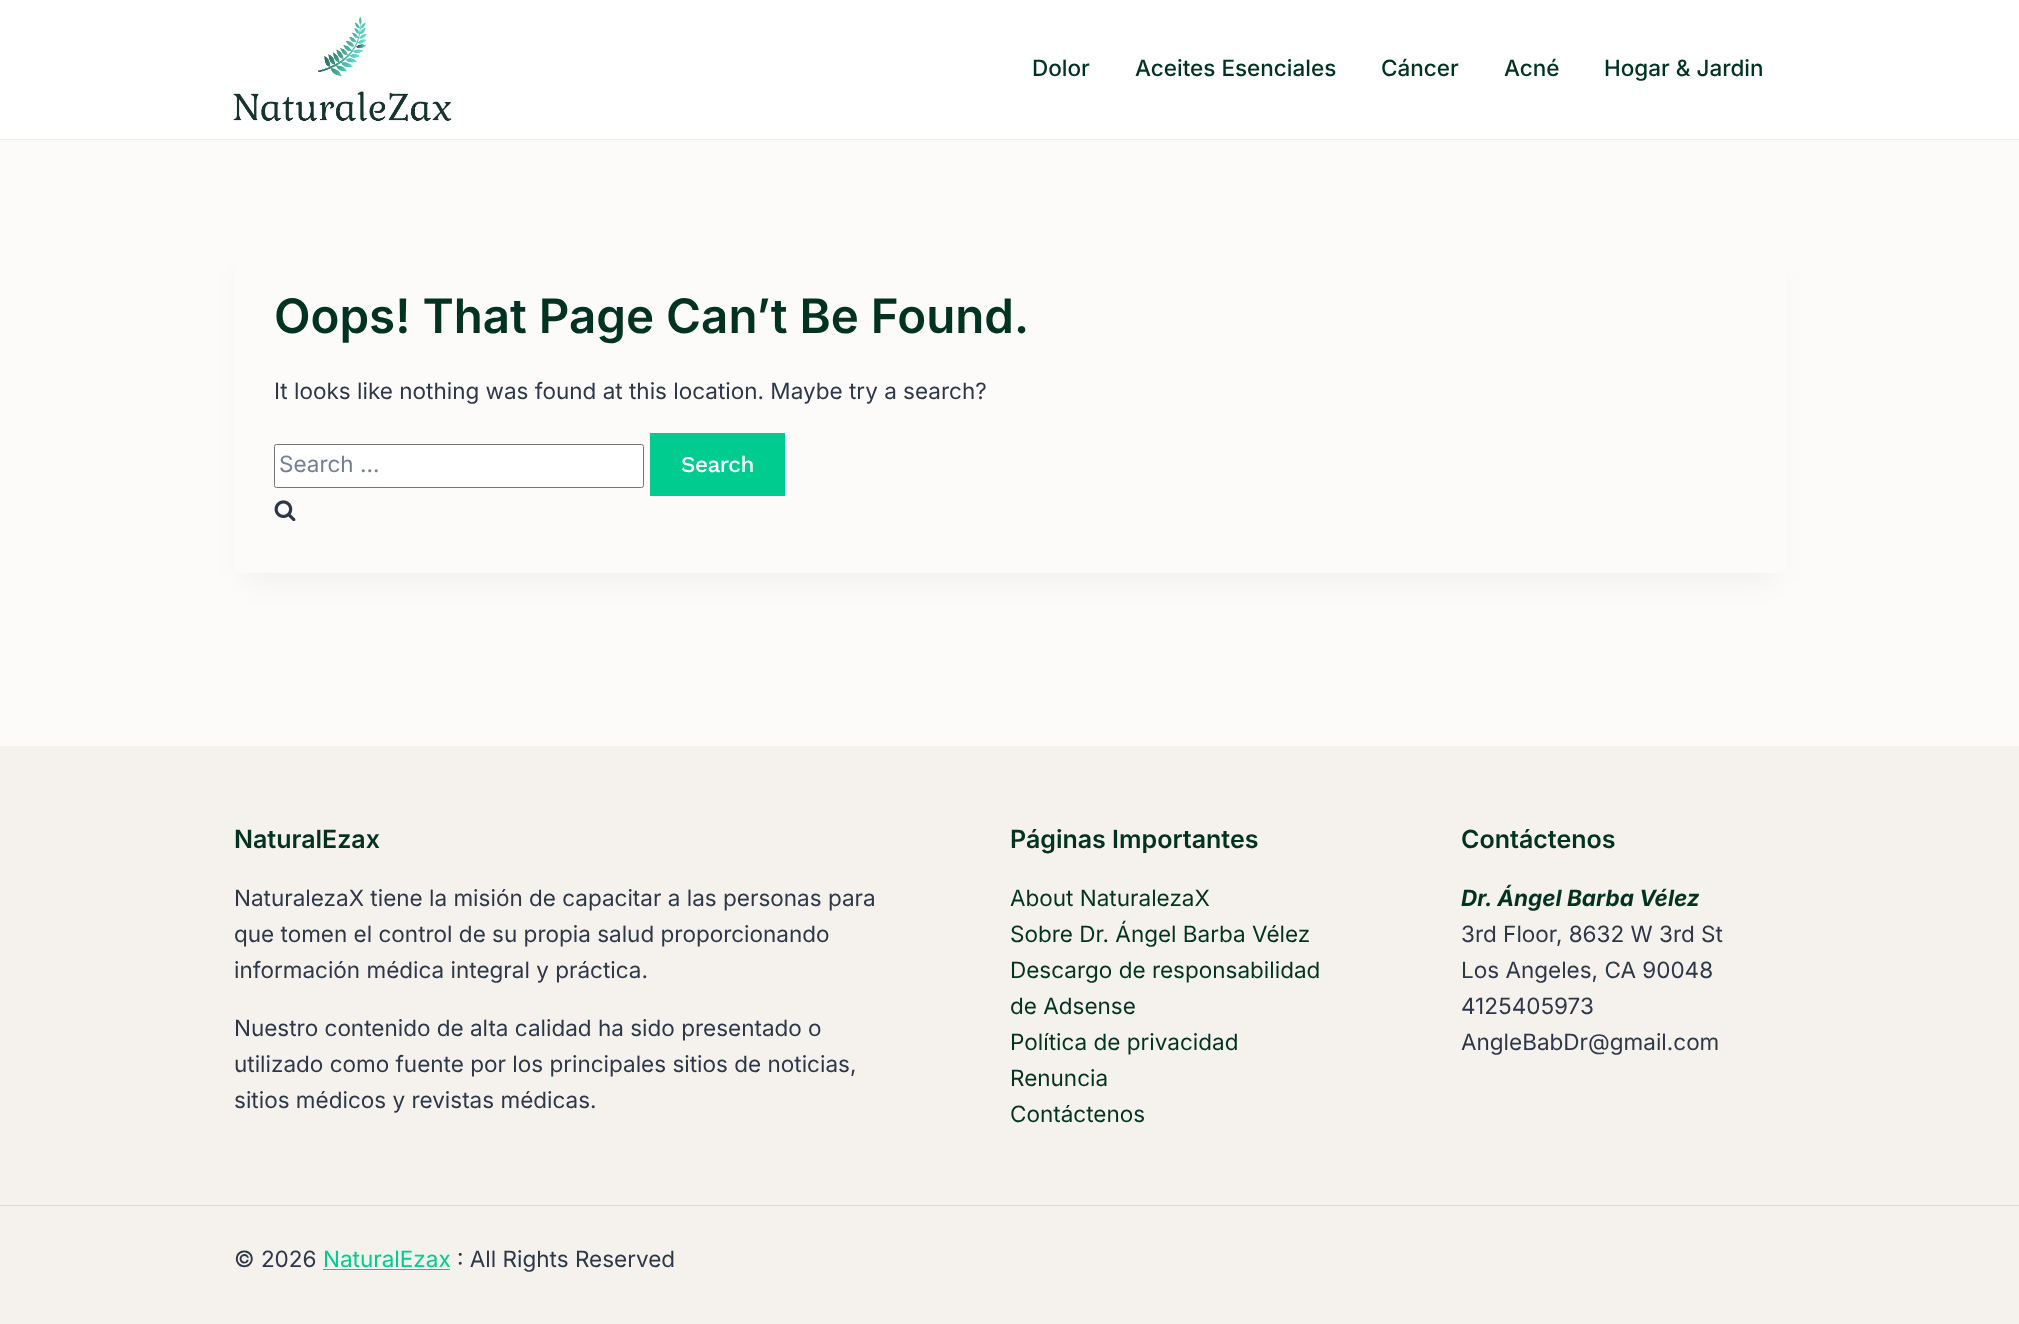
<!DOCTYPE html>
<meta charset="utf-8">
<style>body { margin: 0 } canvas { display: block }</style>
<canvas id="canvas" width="2019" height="1324"></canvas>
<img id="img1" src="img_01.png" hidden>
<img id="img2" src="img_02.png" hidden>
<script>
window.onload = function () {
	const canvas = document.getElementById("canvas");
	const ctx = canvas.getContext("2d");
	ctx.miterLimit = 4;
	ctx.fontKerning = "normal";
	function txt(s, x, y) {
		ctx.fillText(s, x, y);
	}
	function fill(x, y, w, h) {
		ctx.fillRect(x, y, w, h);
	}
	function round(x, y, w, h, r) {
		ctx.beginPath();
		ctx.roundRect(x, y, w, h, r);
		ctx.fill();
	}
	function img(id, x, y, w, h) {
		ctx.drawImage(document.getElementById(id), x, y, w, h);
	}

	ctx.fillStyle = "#FCFBFA";
	fill(0, 0, 2019, 1324);
	ctx.fillStyle = "#FFFFFF";
	fill(0, 0, 2019, 139);
	ctx.fillStyle = "#EEEEEE";
	fill(0, 139, 2019, 1);
	img("img1", 233, 16, 219, 105);
	ctx.fillStyle = "rgba(0, 0, 0, 0.05)";
	ctx.filter = "blur(15.5px)";
	ctx.beginPath();
	ctx.rect(246, 271, 1528, 308);
	ctx.fill();
	ctx.filter = "none";
	ctx.fillStyle = "#FCFBFA";
	round(234, 240, 1552, 333, 5);
	ctx.fillStyle = "#FFFFFF";
	ctx.beginPath();
	ctx.roundRect(274.5, 444.5, 369, 43, 2);
	ctx.fill();
	ctx.strokeStyle = "#767676";
	ctx.stroke();
	ctx.fillStyle = "#00CC90";
	fill(650, 433, 135, 63);
	img("img2", 274, 500, 22, 21);
	ctx.fillStyle = "#F5F2ED";
	fill(0, 746, 2019, 578);
	ctx.fillStyle = "#DDD9D3";
	fill(0, 1205, 2019, 1);
	ctx.fillStyle = "#00CC90";
	fill(323, 1269, 127, 1);
	ctx.font = "500 22.5px Inter";
	ctx.fillStyle = "#013222";
	txt("Dolor", 1032, 76);
	txt("Aceites Esenciales", 1135, 76);
	txt("Cáncer", 1381, 76);
	txt("Acné", 1504, 76);
	txt("Hogar & Jardin", 1604, 76);
	ctx.font = "600 47.5px Inter";
	txt("Oops! That Page Can’t Be Found.", 274, 333);
	ctx.font = "22.5px Inter";
	ctx.fillStyle = "#2D3748";
	txt("It looks like nothing was found at this location. Maybe try a search?", 274, 399);
	ctx.fillStyle = "#718096";
	txt("Search …", 279, 472);
	ctx.letterSpacing = "-0.5px";
	ctx.font = "500 22.5px Work Sans";
	ctx.fillStyle = "#FFFFFF";
	txt("Search", 681, 472);
	ctx.letterSpacing = "0px";
	ctx.font = "600 25px Inter";
	ctx.fillStyle = "#013222";
	txt("NaturalEzax", 234, 848);
	ctx.font = "22.5px Inter";
	ctx.fillStyle = "#2D3748";
	txt("NaturalezaX tiene la misión de capacitar a las personas para", 234, 906);
	txt("que tomen el control de su propia salud proporcionando", 234, 942);
	txt("información médica integral y práctica.", 234, 978);
	txt("Nuestro contenido de alta calidad ha sido presentado o", 234, 1036);
	txt("utilizado como fuente por los principales sitios de noticias,", 234, 1072);
	txt("sitios médicos y revistas médicas.", 234, 1108);
	ctx.font = "600 25px Inter";
	ctx.fillStyle = "#013222";
	txt("Páginas Importantes", 1010, 848);
	ctx.font = "22.5px Inter";
	txt("About NaturalezaX", 1010, 906);
	txt("Sobre Dr. Ángel Barba Vélez", 1010, 942);
	txt("Descargo de responsabilidad", 1010, 978);
	txt("de Adsense", 1010, 1014);
	txt("Política de privacidad", 1010, 1050);
	txt("Renuncia", 1010, 1086);
	txt("Contáctenos", 1010, 1122);
	ctx.font = "600 25px Inter";
	txt("Contáctenos", 1461, 848);
	ctx.font = "italic bold 22.5px Inter";
	txt("Dr. Ángel Barba Vélez", 1461, 906);
	ctx.font = "22.5px Inter";
	ctx.fillStyle = "#2D3748";
	txt("3rd Floor, 8632 W 3rd St", 1461, 942);
	txt("Los Angeles, CA 90048", 1461, 978);
	txt("4125405973", 1461, 1014);
	txt("AngleBabDr@gmail.com", 1461, 1050);
	txt("© 2026", 234, 1267);
	ctx.fillStyle = "#00CC90";
	txt("NaturalEzax", 323, 1267);
	ctx.fillStyle = "#2D3748";
	txt(": All Rights Reserved", 457, 1267);
};
</script>
